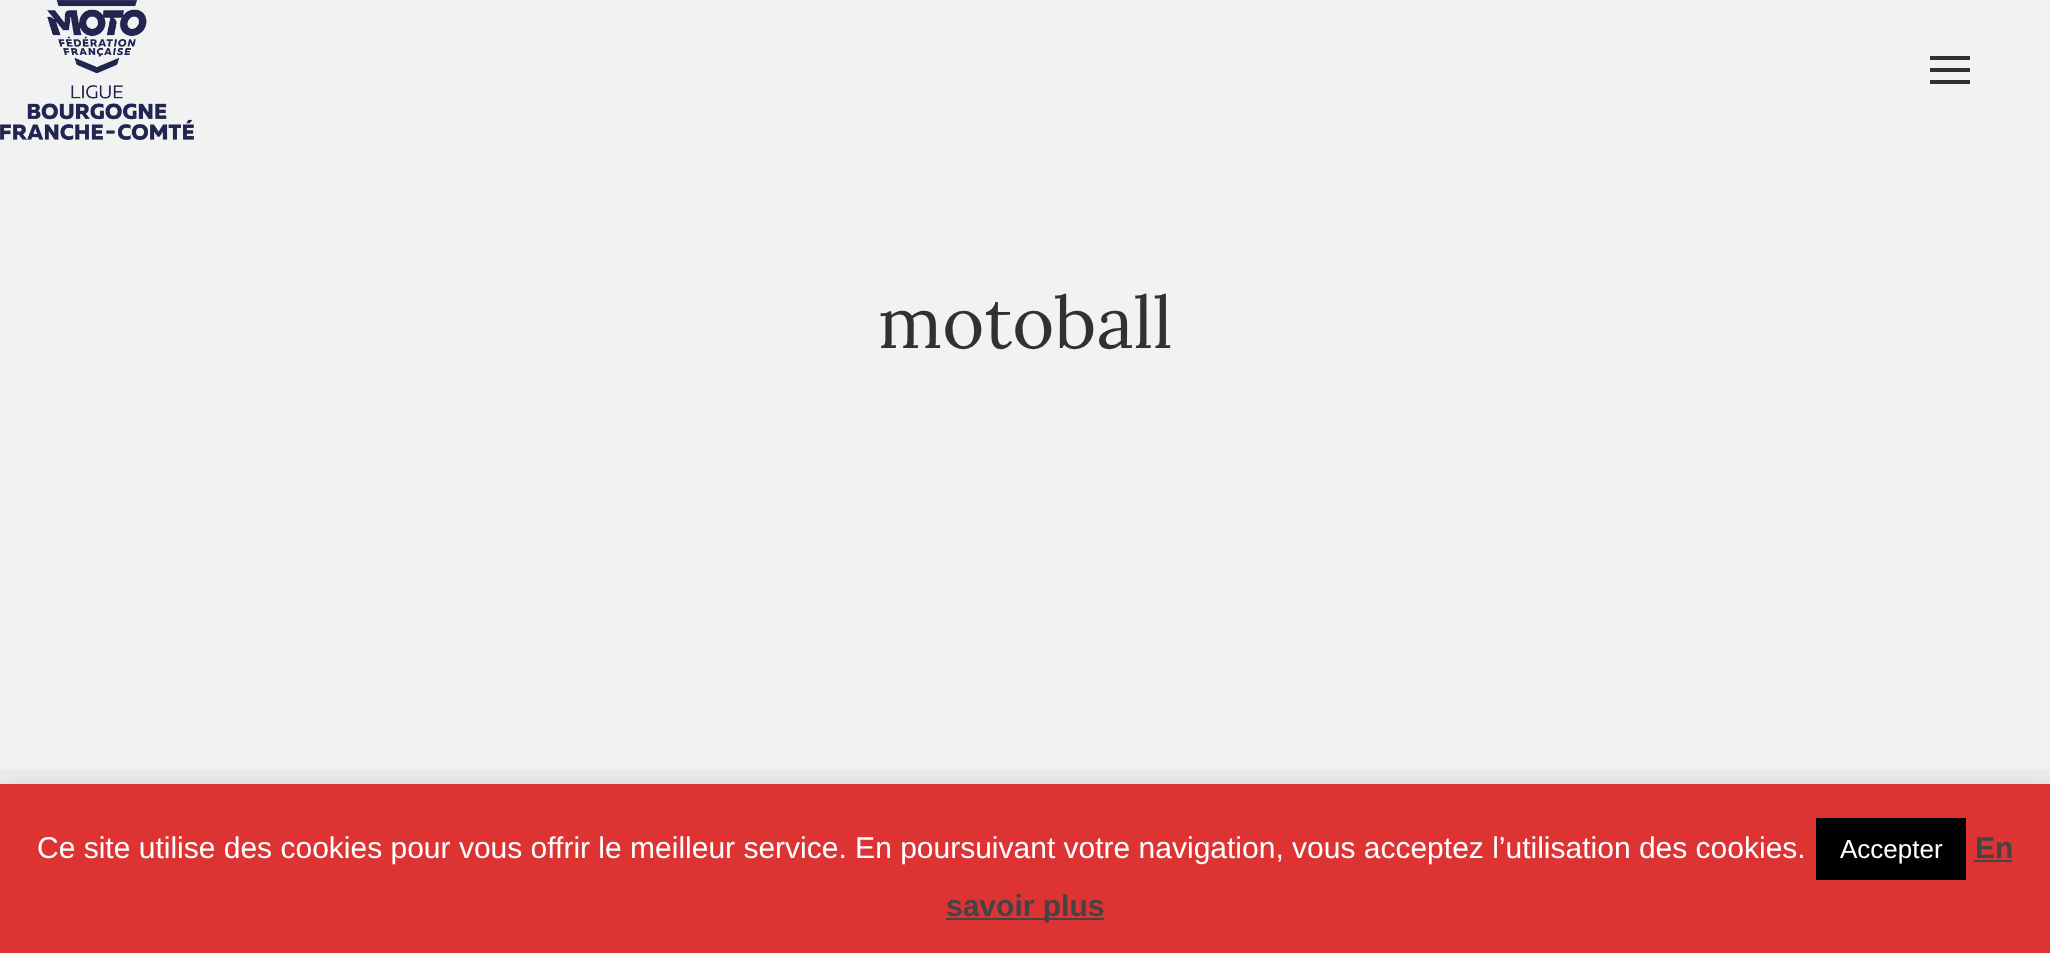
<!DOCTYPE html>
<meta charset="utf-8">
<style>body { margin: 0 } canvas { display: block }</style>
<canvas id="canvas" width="2050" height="953"></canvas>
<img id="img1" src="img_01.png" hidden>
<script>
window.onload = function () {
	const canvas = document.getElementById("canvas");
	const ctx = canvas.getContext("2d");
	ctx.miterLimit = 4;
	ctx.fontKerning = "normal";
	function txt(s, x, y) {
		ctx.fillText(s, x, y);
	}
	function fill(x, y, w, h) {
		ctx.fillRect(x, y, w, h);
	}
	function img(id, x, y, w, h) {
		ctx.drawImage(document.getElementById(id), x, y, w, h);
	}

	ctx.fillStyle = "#F2F2F2";
	fill(0, 0, 2050, 953);
	img("img1", 0, 0, 194, 140);
	ctx.fillStyle = "#313131";
	fill(1930, 56, 40, 4);
	fill(1930, 68, 40, 4);
	fill(1930, 80, 40, 4);
	ctx.fillStyle = "#EDEDED";
	fill(0, 770, 2050, 14);
	ctx.fillStyle = "rgba(172, 171, 171, 0.3)";
	ctx.filter = "blur(10px)";
	ctx.beginPath();
	ctx.rect(0, 782, 2050, 170);
	ctx.fill();
	ctx.filter = "none";
	ctx.fillStyle = "#DD3333";
	fill(0, 784, 2050, 169);
	ctx.fillStyle = "#000000";
	fill(1816, 818, 150, 62);
	ctx.fillStyle = "#444444";
	fill(1974, 860, 38, 2);
	fill(946, 918, 158, 2);
	ctx.font = "72px Lora";
	ctx.fillStyle = "#313131";
	txt("motoball", 878, 348);
	ctx.font = "30px Liberation Sans";
	ctx.fillStyle = "#FFFFFF";
	txt("Ce site utilise des cookies pour vous offrir le meilleur service. En poursuivant votre navigation, vous acceptez l’utilisation des cookies.", 37, 858);
	ctx.font = "26px Liberation Sans";
	txt("Accepter", 1840, 858);
	ctx.font = "bold 30px Liberation Sans";
	ctx.fillStyle = "#444444";
	txt("En", 1975, 858);
	txt("savoir plus", 946, 916);
};
</script>
